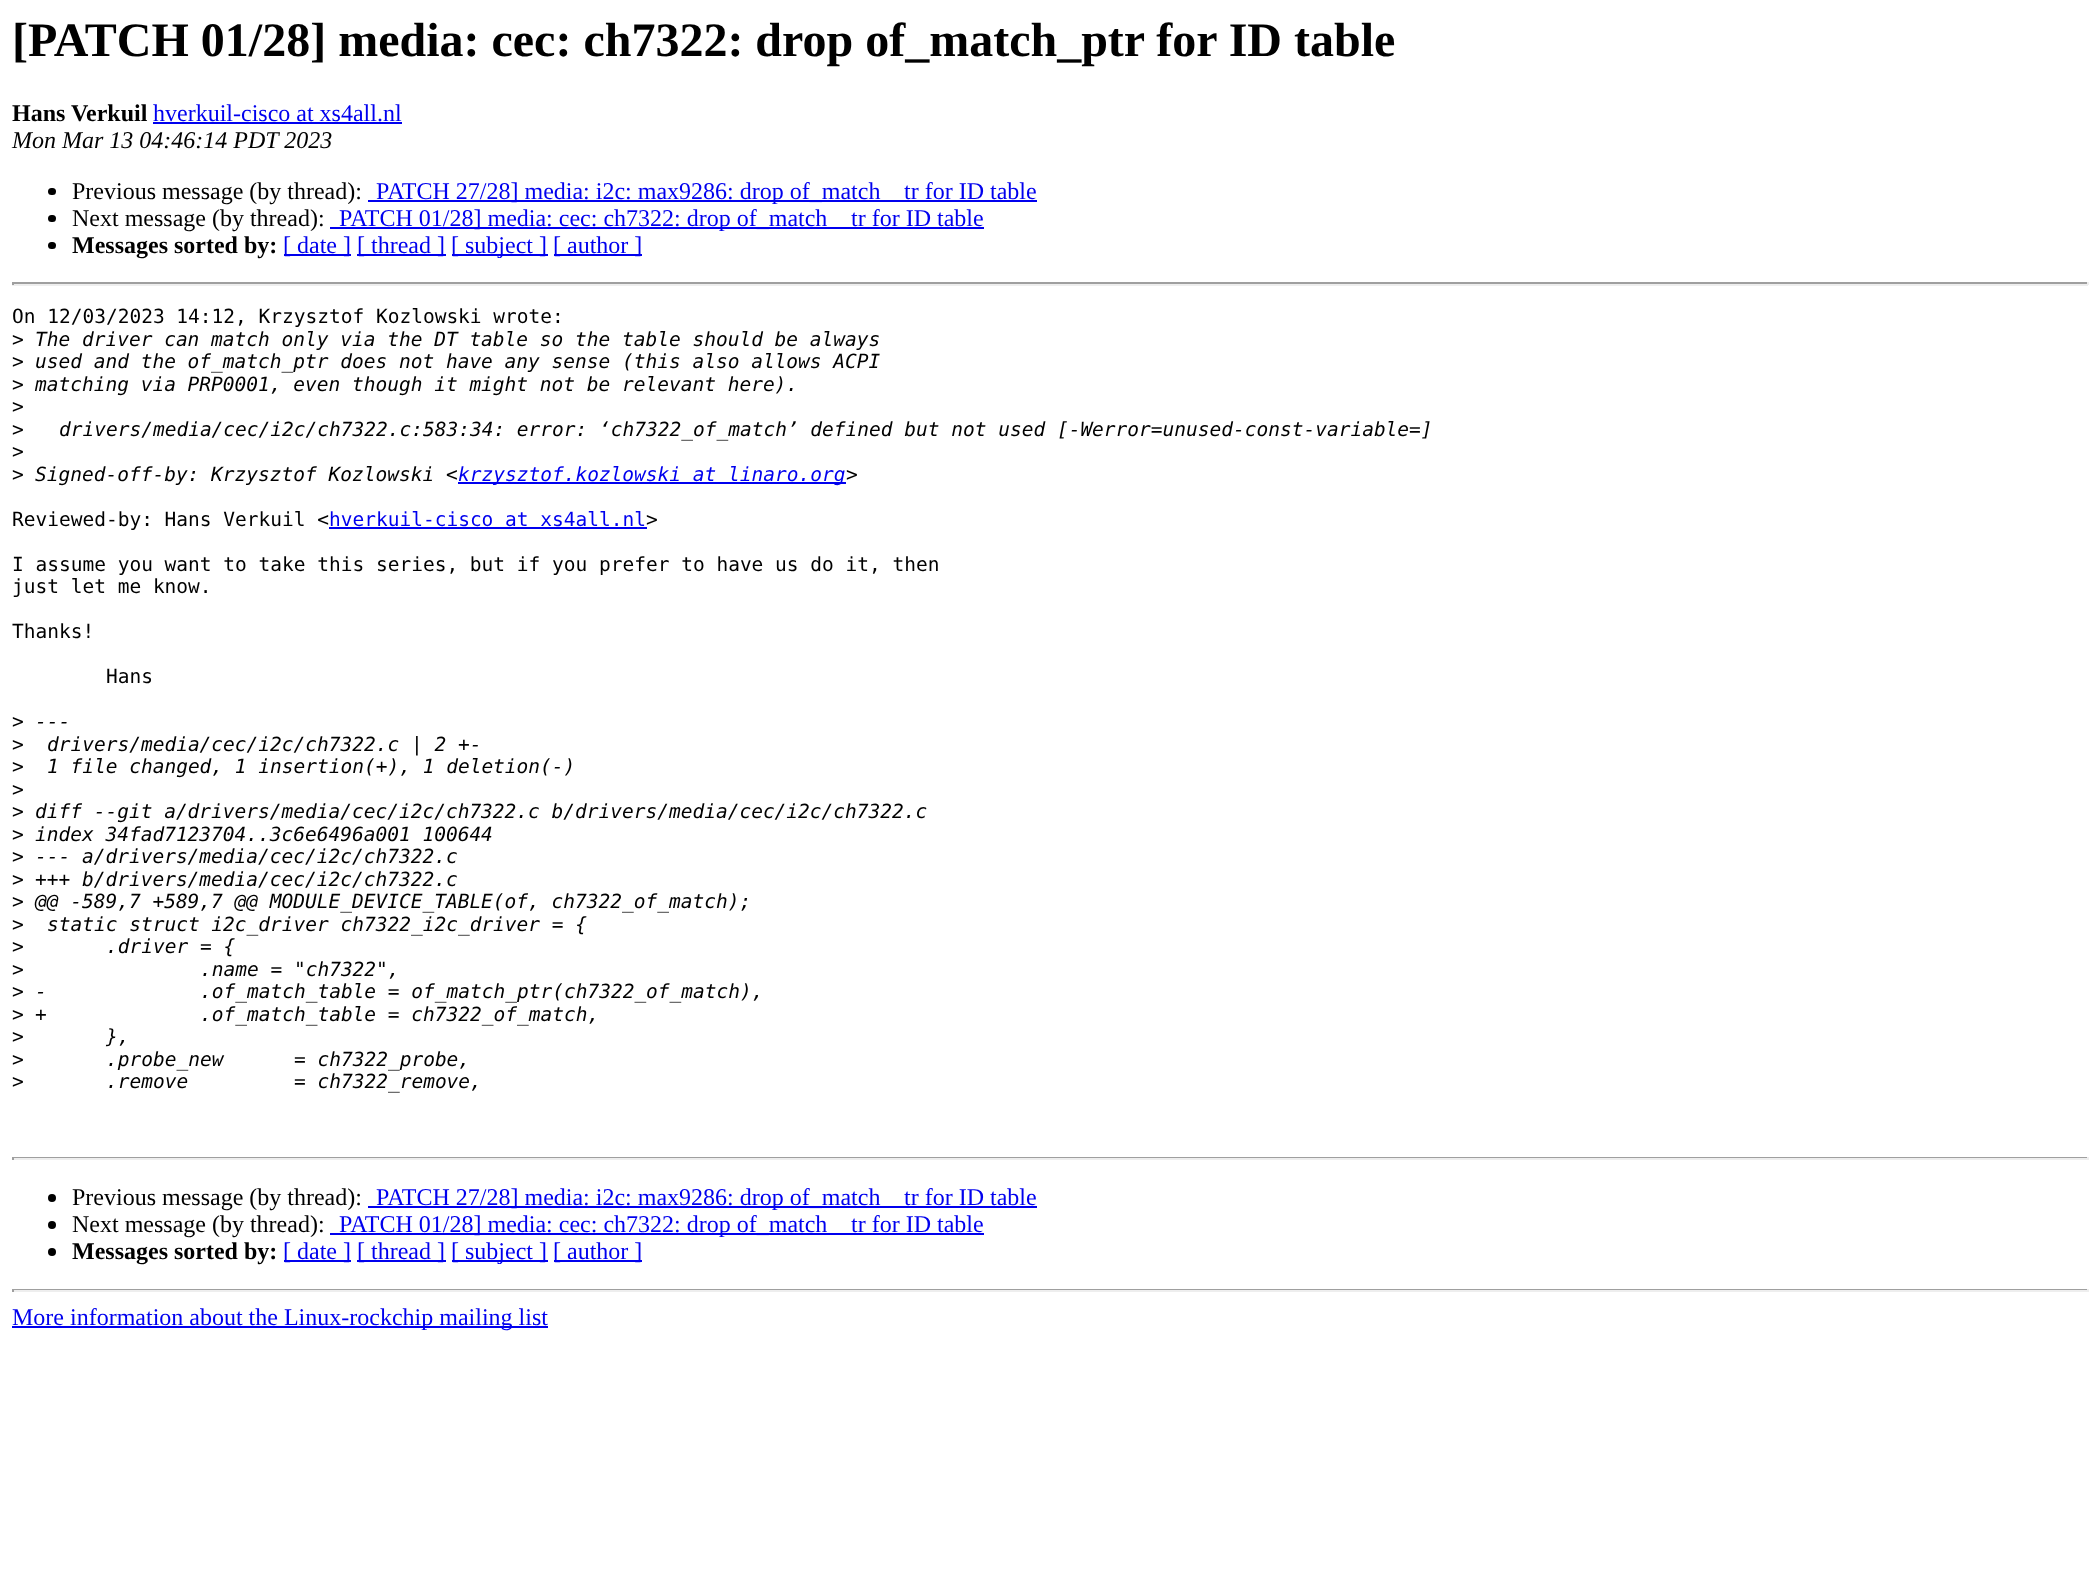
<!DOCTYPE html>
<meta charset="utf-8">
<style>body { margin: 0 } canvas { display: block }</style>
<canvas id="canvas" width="2099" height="1595"></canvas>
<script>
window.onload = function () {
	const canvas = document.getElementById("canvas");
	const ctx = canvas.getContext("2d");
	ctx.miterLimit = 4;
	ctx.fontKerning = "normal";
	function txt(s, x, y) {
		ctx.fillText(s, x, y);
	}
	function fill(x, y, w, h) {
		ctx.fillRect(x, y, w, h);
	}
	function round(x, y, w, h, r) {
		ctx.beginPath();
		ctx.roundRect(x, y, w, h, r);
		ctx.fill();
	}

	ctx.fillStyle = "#FFFFFF";
	fill(0, 0, 2099, 1595);
	ctx.fillStyle = "#0000EE";
	fill(153, 122, 249, 2);
	ctx.fillStyle = "#000000";
	round(48, 188, 8, 7, 3.5);
	ctx.fillStyle = "#0000EE";
	fill(368, 200, 669, 2);
	ctx.fillStyle = "#000000";
	round(48, 215, 8, 7, 3.5);
	ctx.fillStyle = "#0000EE";
	fill(330, 227, 654, 2);
	ctx.fillStyle = "#000000";
	round(48, 242, 8, 7, 3.5);
	ctx.fillStyle = "#0000EE";
	fill(284, 254, 67, 2);
	fill(357, 254, 89, 2);
	fill(452, 254, 96, 2);
	fill(554, 254, 88, 2);
	ctx.fillStyle = "#9F9F9F";
	fill(12, 282, 2076, 2);
	ctx.fillStyle = "#EEEEEE";
	fill(2087, 282, 2, 3);
	fill(12, 284, 2076, 2);
	ctx.fillStyle = "#9F9F9F";
	fill(12, 282, 2, 3);
	ctx.fillStyle = "#0000EE";
	fill(458, 482, 388, 2);
	fill(329, 527, 318, 2);
	ctx.fillStyle = "#9F9F9F";
	fill(12, 1157, 2076, 1);
	ctx.fillStyle = "#EEEEEE";
	fill(2087, 1157, 2, 3);
	fill(12, 1158, 2076, 2);
	ctx.fillStyle = "#9F9F9F";
	fill(12, 1157, 2, 3);
	ctx.fillStyle = "#000000";
	ctx.beginPath();
	ctx.arc(52, 1198, 4, 0, Math.PI * 2);
	ctx.fill();
	ctx.fillStyle = "#0000EE";
	fill(368, 1206, 669, 2);
	ctx.fillStyle = "#000000";
	ctx.beginPath();
	ctx.arc(52, 1225, 4, 0, Math.PI * 2);
	ctx.fill();
	ctx.fillStyle = "#0000EE";
	fill(330, 1233, 654, 2);
	ctx.fillStyle = "#000000";
	ctx.beginPath();
	ctx.arc(52, 1252, 4, 0, Math.PI * 2);
	ctx.fill();
	ctx.fillStyle = "#0000EE";
	fill(284, 1260, 67, 2);
	fill(357, 1260, 89, 2);
	fill(452, 1260, 96, 2);
	fill(554, 1260, 88, 2);
	ctx.fillStyle = "#9F9F9F";
	fill(12, 1289, 2076, 1);
	ctx.fillStyle = "#EEEEEE";
	fill(2087, 1289, 2, 3);
	fill(12, 1290, 2076, 2);
	ctx.fillStyle = "#9F9F9F";
	fill(12, 1289, 2, 3);
	ctx.fillStyle = "#0000EE";
	fill(12, 1326, 536, 2);
	ctx.font = "bold 48px Liberation Serif";
	ctx.fillStyle = "#000000";
	txt("[PATCH 01/28] media: cec: ch7322: drop of_match_ptr for ID table", 12, 56);
	ctx.font = "bold 24px Liberation Serif";
	txt("Hans Verkuil", 12, 121);
	ctx.font = "24px Liberation Serif";
	ctx.fillStyle = "#0000EE";
	txt("hverkuil-cisco at xs4all.nl", 153, 121);
	ctx.font = "italic 24px Liberation Serif";
	ctx.fillStyle = "#000000";
	txt("Mon Mar 13 04:46:14 PDT 2023", 12, 148);
	ctx.font = "24px Liberation Serif";
	txt("Previous message (by thread):", 72, 199);
	ctx.fillStyle = "#0000EE";
	txt("PATCH 27/28] media: i2c: max9286: drop of_match", 376, 199);
	txt("tr for ID table", 904, 199);
	ctx.fillStyle = "#000000";
	txt("Next message (by thread):", 72, 226);
	ctx.fillStyle = "#0000EE";
	txt("PATCH 01/28] media: cec: ch7322: drop of_match", 339, 226);
	txt("tr for ID table", 851, 226);
	ctx.font = "bold 24px Liberation Serif";
	ctx.fillStyle = "#000000";
	txt("Messages sorted by:", 72, 253);
	ctx.font = "24px Liberation Serif";
	ctx.fillStyle = "#0000EE";
	txt("[ date ]", 283, 253);
	txt("[ thread ]", 357, 253);
	txt("[ subject ]", 451, 253);
	txt("[ author ]", 553, 253);
	ctx.font = "19.5px DejaVu Sans Mono";
	ctx.fillStyle = "#000000";
	txt("On 12/03/2023 14:12, Krzysztof Kozlowski wrote:", 12, 323);
	txt(">", 12, 346);
	ctx.font = "italic 19.5px DejaVu Sans Mono";
	txt("The driver can match only via the DT table so the table should be always", 35, 346);
	ctx.font = "19.5px DejaVu Sans Mono";
	txt(">", 12, 368);
	ctx.font = "italic 19.5px DejaVu Sans Mono";
	txt("used and the of_match_ptr does not have any sense (this also allows ACPI", 35, 368);
	ctx.font = "19.5px DejaVu Sans Mono";
	txt(">", 12, 391);
	ctx.font = "italic 19.5px DejaVu Sans Mono";
	txt("matching via PRP0001, even though it might not be relevant here).", 35, 391);
	ctx.font = "19.5px DejaVu Sans Mono";
	txt(">", 12, 413);
	txt(">", 12, 436);
	ctx.font = "italic 19.5px DejaVu Sans Mono";
	txt("drivers/media/cec/i2c/ch7322.c:583:34: error: ‘ch7322_of_match’ defined but not used [-Werror=unused-const-variable=]", 59, 436);
	ctx.font = "19.5px DejaVu Sans Mono";
	txt(">", 12, 458);
	txt(">", 12, 481);
	ctx.font = "italic 19.5px DejaVu Sans Mono";
	txt("Signed-off-by: Krzysztof Kozlowski <", 35, 481);
	ctx.fillStyle = "#0000EE";
	txt("krzysztof.kozlowski at linaro.org", 458, 481);
	ctx.fillStyle = "#000000";
	txt(">", 846, 481);
	ctx.font = "19.5px DejaVu Sans Mono";
	txt("Reviewed-by: Hans Verkuil <", 12, 526);
	ctx.fillStyle = "#0000EE";
	txt("hverkuil-cisco at xs4all.nl", 329, 526);
	ctx.fillStyle = "#000000";
	txt(">", 646, 526);
	txt("I assume you want to take this series, but if you prefer to have us do it, then", 12, 571);
	txt("just let me know.", 12, 593);
	txt("Thanks!", 12, 638);
	txt("Hans", 106, 683);
	txt(">", 12, 728);
	ctx.font = "italic 19.5px DejaVu Sans Mono";
	txt("---", 35, 728);
	ctx.font = "19.5px DejaVu Sans Mono";
	txt(">", 12, 751);
	ctx.font = "italic 19.5px DejaVu Sans Mono";
	txt("drivers/media/cec/i2c/ch7322.c | 2 +-", 47, 751);
	ctx.font = "19.5px DejaVu Sans Mono";
	txt(">", 12, 773);
	ctx.font = "italic 19.5px DejaVu Sans Mono";
	txt("1 file changed, 1 insertion(+), 1 deletion(-)", 47, 773);
	ctx.font = "19.5px DejaVu Sans Mono";
	txt(">", 12, 796);
	txt(">", 12, 818);
	ctx.font = "italic 19.5px DejaVu Sans Mono";
	txt("diff --git a/drivers/media/cec/i2c/ch7322.c b/drivers/media/cec/i2c/ch7322.c", 35, 818);
	ctx.font = "19.5px DejaVu Sans Mono";
	txt(">", 12, 841);
	ctx.font = "italic 19.5px DejaVu Sans Mono";
	txt("index 34fad7123704..3c6e6496a001 100644", 35, 841);
	ctx.font = "19.5px DejaVu Sans Mono";
	txt(">", 12, 863);
	ctx.font = "italic 19.5px DejaVu Sans Mono";
	txt("--- a/drivers/media/cec/i2c/ch7322.c", 35, 863);
	ctx.font = "19.5px DejaVu Sans Mono";
	txt(">", 12, 886);
	ctx.font = "italic 19.5px DejaVu Sans Mono";
	txt("+++ b/drivers/media/cec/i2c/ch7322.c", 35, 886);
	ctx.font = "19.5px DejaVu Sans Mono";
	txt(">", 12, 908);
	ctx.font = "italic 19.5px DejaVu Sans Mono";
	txt("@@ -589,7 +589,7 @@ MODULE_DEVICE_TABLE(of, ch7322_of_match);", 35, 908);
	ctx.font = "19.5px DejaVu Sans Mono";
	txt(">", 12, 931);
	ctx.font = "italic 19.5px DejaVu Sans Mono";
	txt("static struct i2c_driver ch7322_i2c_driver = {", 47, 931);
	ctx.font = "19.5px DejaVu Sans Mono";
	txt(">", 12, 953);
	ctx.font = "italic 19.5px DejaVu Sans Mono";
	txt(".driver = {", 106, 953);
	ctx.font = "19.5px DejaVu Sans Mono";
	txt(">", 12, 976);
	ctx.font = "italic 19.5px DejaVu Sans Mono";
	txt(".name = \"ch7322\",", 200, 976);
	ctx.font = "19.5px DejaVu Sans Mono";
	txt(">", 12, 998);
	ctx.font = "italic 19.5px DejaVu Sans Mono";
	txt("-", 35, 998);
	txt(".of_match_table = of_match_ptr(ch7322_of_match),", 200, 998);
	ctx.font = "19.5px DejaVu Sans Mono";
	txt(">", 12, 1021);
	ctx.font = "italic 19.5px DejaVu Sans Mono";
	txt("+", 35, 1021);
	txt(".of_match_table = ch7322_of_match,", 200, 1021);
	ctx.font = "19.5px DejaVu Sans Mono";
	txt(">", 12, 1043);
	ctx.font = "italic 19.5px DejaVu Sans Mono";
	txt("},", 106, 1043);
	ctx.font = "19.5px DejaVu Sans Mono";
	txt(">", 12, 1066);
	ctx.font = "italic 19.5px DejaVu Sans Mono";
	txt(".probe_new", 106, 1066);
	txt("= ch7322_probe,", 294, 1066);
	ctx.font = "19.5px DejaVu Sans Mono";
	txt(">", 12, 1088);
	ctx.font = "italic 19.5px DejaVu Sans Mono";
	txt(".remove", 106, 1088);
	txt("= ch7322_remove,", 294, 1088);
	ctx.font = "24px Liberation Serif";
	txt("Previous message (by thread):", 72, 1205);
	ctx.fillStyle = "#0000EE";
	txt("PATCH 27/28] media: i2c: max9286: drop of_match", 376, 1205);
	txt("tr for ID table", 904, 1205);
	ctx.fillStyle = "#000000";
	txt("Next message (by thread):", 72, 1232);
	ctx.fillStyle = "#0000EE";
	txt("PATCH 01/28] media: cec: ch7322: drop of_match", 339, 1232);
	txt("tr for ID table", 851, 1232);
	ctx.font = "bold 24px Liberation Serif";
	ctx.fillStyle = "#000000";
	txt("Messages sorted by:", 72, 1259);
	ctx.font = "24px Liberation Serif";
	ctx.fillStyle = "#0000EE";
	txt("[ date ]", 283, 1259);
	txt("[ thread ]", 357, 1259);
	txt("[ subject ]", 451, 1259);
	txt("[ author ]", 553, 1259);
	txt("More information about the Linux-rockchip mailing list", 12, 1325);
};
</script>
